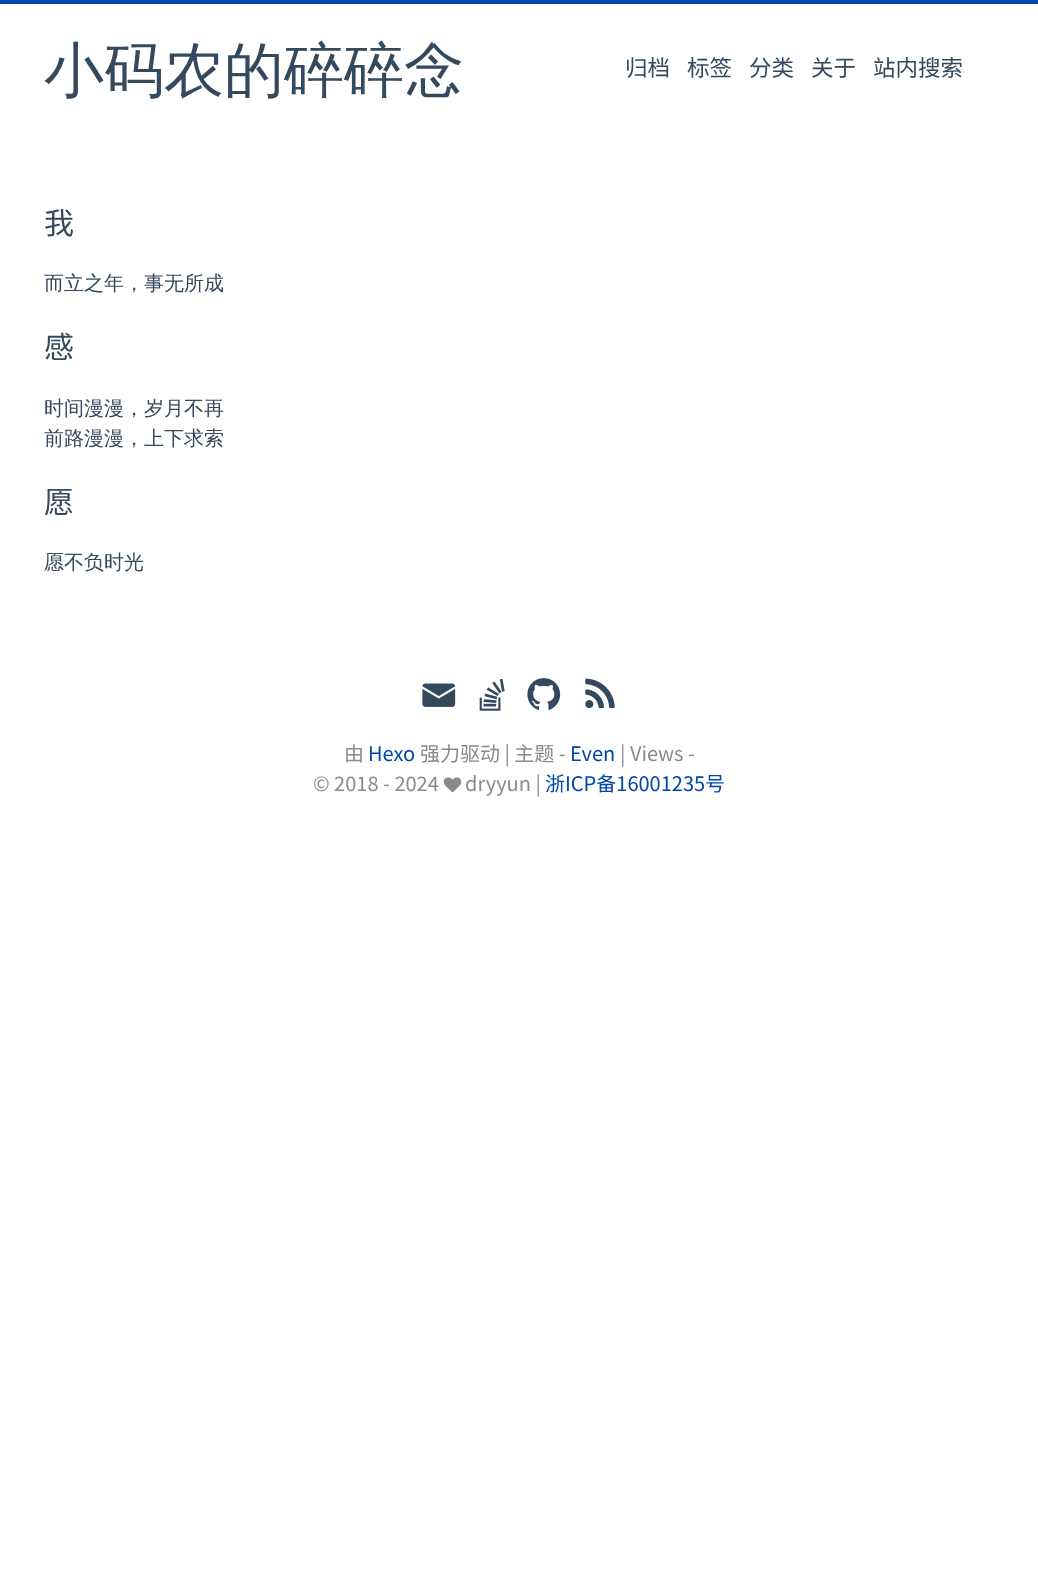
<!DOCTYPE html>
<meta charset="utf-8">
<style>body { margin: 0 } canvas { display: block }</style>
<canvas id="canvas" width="1038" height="1591"></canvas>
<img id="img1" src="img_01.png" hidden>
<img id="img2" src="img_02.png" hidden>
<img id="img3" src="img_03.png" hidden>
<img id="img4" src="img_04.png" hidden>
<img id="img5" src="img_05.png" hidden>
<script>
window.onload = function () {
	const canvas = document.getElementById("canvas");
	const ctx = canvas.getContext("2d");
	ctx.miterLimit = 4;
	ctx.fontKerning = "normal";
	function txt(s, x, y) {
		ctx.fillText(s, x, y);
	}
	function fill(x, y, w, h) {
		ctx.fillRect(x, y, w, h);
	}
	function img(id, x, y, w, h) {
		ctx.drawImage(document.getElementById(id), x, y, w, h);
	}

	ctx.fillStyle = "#FFFFFF";
	fill(0, 0, 1038, 1591);
	ctx.fillStyle = "#0047AB";
	fill(0, 0, 1038, 4);
	img("img1", 422, 683, 34, 24);
	img("img2", 479, 678, 26, 33);
	img("img3", 527, 678, 34, 32);
	img("img4", 585, 678, 30, 31);
	img("img5", 443, 777, 19, 16);
	ctx.font = "500 60px WenQuanYi Zen Hei";
	ctx.fillStyle = "#34495E";
	txt("小码农的碎碎念", 44, 91);
	ctx.font = "22.5px Noto Sans CJK SC";
	txt("归档", 625, 76);
	txt("标签", 687, 76);
	txt("分类", 749, 76);
	txt("关于", 811, 76);
	txt("站内搜索", 873, 76);
	ctx.font = "30px Noto Sans CJK SC";
	txt("我", 44, 234);
	ctx.font = "500 20px WenQuanYi Zen Hei";
	txt("而立之年，事无所成", 44, 290);
	ctx.font = "30px Noto Sans CJK SC";
	txt("感", 44, 358);
	ctx.font = "500 20px WenQuanYi Zen Hei";
	txt("时间漫漫，岁月不再", 44, 415);
	txt("前路漫漫，上下求索", 44, 445);
	ctx.font = "30px Noto Sans CJK SC";
	txt("愿", 44, 513);
	ctx.font = "500 20px WenQuanYi Zen Hei";
	txt("愿不负时光", 44, 569);
	ctx.font = "20px Noto Sans CJK SC";
	ctx.fillStyle = "#8A8A8A";
	txt("由", 344, 761);
	ctx.fillStyle = "#0047AB";
	txt("Hexo", 368, 761);
	ctx.fillStyle = "#8A8A8A";
	txt("强力驱动 | 主题 -", 420, 761);
	ctx.fillStyle = "#0047AB";
	txt("Even", 570, 761);
	ctx.fillStyle = "#8A8A8A";
	txt("| Views -", 620, 761);
	txt("© 2018 - 2024", 313, 791);
	txt("dryyun |", 465, 791);
	ctx.fillStyle = "#0047AB";
	txt("浙ICP备16001235号", 545, 791);
};
</script>
